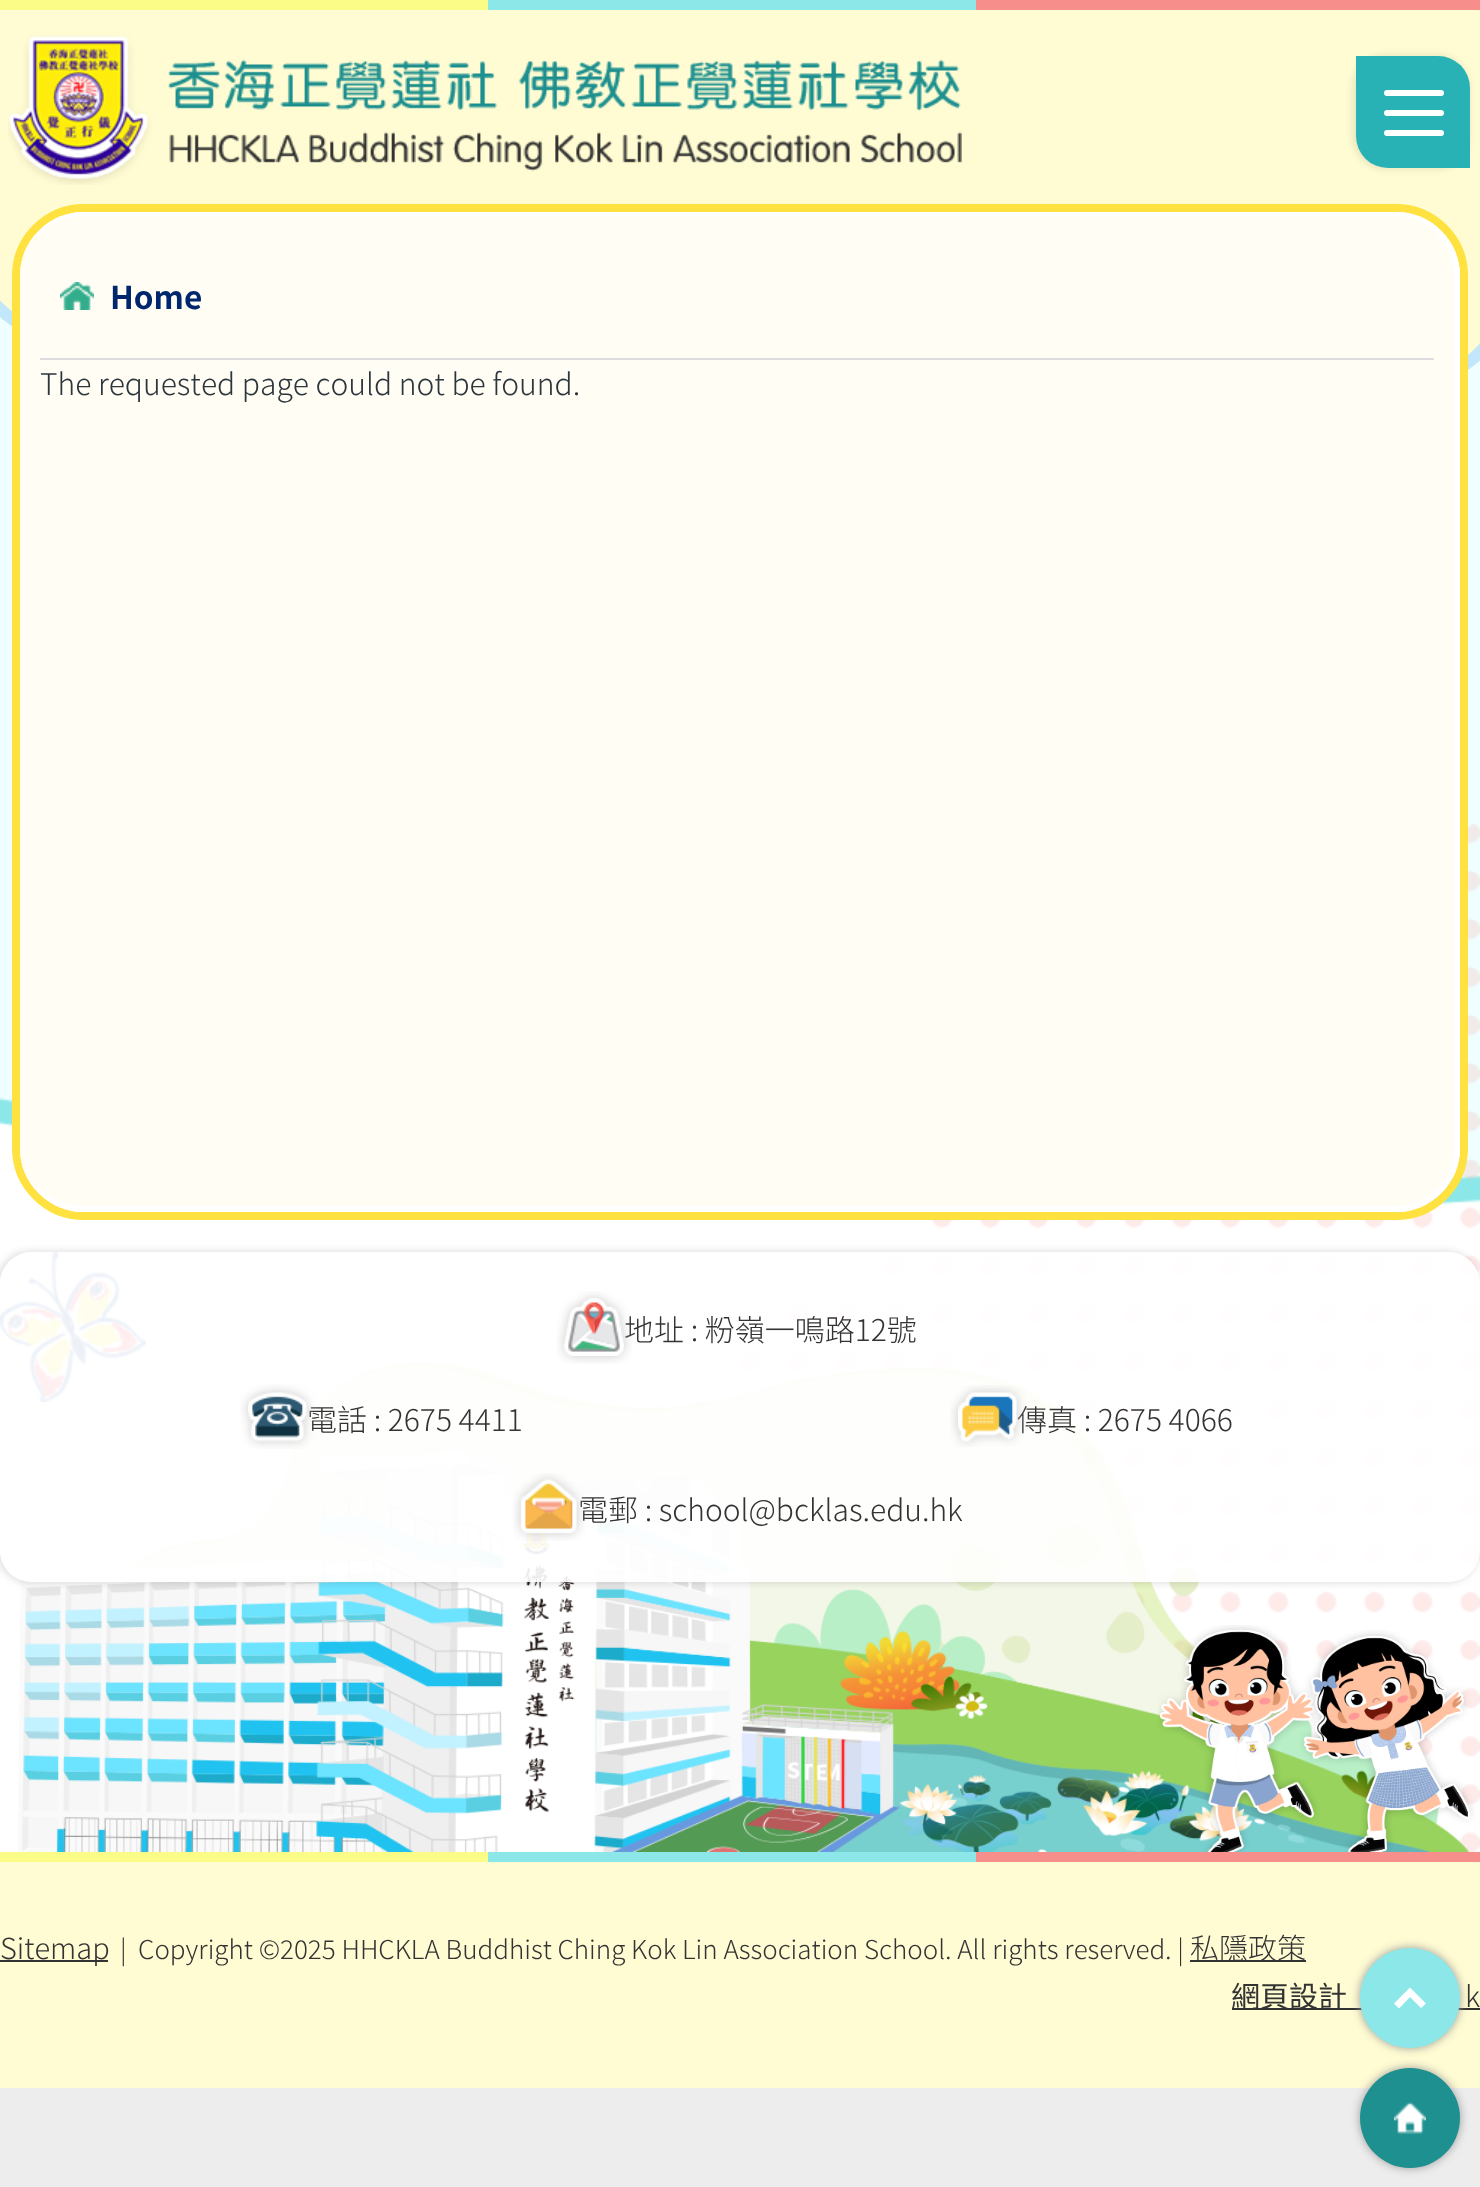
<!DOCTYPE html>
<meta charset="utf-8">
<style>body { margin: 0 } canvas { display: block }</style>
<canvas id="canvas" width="1480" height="2187"></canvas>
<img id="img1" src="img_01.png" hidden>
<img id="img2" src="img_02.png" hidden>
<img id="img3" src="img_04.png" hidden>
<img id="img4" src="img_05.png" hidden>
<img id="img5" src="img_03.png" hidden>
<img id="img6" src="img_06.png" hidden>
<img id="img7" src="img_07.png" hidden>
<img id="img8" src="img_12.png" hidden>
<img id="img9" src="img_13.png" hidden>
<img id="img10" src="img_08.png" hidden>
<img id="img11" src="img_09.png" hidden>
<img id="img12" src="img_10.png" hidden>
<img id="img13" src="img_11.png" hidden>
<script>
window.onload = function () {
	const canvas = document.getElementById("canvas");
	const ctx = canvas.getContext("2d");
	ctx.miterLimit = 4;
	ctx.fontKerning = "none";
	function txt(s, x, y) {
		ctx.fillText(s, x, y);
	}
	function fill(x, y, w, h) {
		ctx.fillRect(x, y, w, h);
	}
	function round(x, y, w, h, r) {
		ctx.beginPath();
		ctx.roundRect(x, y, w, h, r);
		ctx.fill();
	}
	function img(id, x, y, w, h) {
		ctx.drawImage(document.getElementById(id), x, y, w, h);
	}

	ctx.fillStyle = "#EDEDED";
	fill(0, 0, 1480, 2187);
	ctx.fillStyle = "#FFFFFF";
	fill(0, 1252, 1480, 600);
	ctx.fillStyle = "#FFFCD3";
	fill(0, 10, 1480, 202);
	ctx.fillStyle = "#FBFB88";
	fill(0, 0, 488, 10);
	ctx.fillStyle = "#8CE7E9";
	fill(488, 0, 488, 10);
	ctx.fillStyle = "#F68E8C";
	fill(976, 0, 504, 10);
	img("img1", 8, 35, 954, 150);
	ctx.fillStyle = "rgba(0, 0, 0, 0.08)";
	ctx.filter = "blur(3px)";
	ctx.beginPath();
	ctx.roundRect(1352, 54, 118, 116, 34);
	ctx.fill();
	ctx.filter = "none";
	ctx.fillStyle = "#28B2B5";
	ctx.beginPath();
	ctx.roundRect(1356, 56, 114, 112, [0, 32, 0, 32]);
	ctx.fill();
	ctx.fillStyle = "#FFFFFF";
	round(1384, 90, 60, 6, 3);
	round(1384, 110, 60, 6, 3);
	round(1384, 130, 60, 6, 3);
	ctx.fillStyle = "#EFFFFF";
	fill(0, 317, 1480, 864);
	img("img2", 0, 212, 1480, 158);
	img("img3", 0, 1097, 1480, 155);
	img("img4", 595, 824, 885, 1028);
	ctx.beginPath();
	ctx.roundRect(16, 208, 1448, 1008, 68);
	ctx.strokeStyle = "#FFE240";
	ctx.lineWidth = 8;
	ctx.stroke();
	ctx.fillStyle = "#FFFDF4";
	round(20, 212, 1440, 1000, 64);
	ctx.fillStyle = "#FFFFFF";
	ctx.beginPath();
	ctx.moveTo(84, 212);
	ctx.lineTo(1396, 212);
	ctx.bezierCurveTo(1431, 212, 1460, 241, 1460, 276);
	ctx.lineTo(1460, 1148);
	ctx.bezierCurveTo(1460, 1183, 1431, 1212, 1396, 1212);
	ctx.lineTo(84, 1212);
	ctx.bezierCurveTo(49, 1212, 20, 1183, 20, 1148);
	ctx.lineTo(20, 276);
	ctx.bezierCurveTo(20, 241, 49, 212, 84, 212);
	ctx.closePath();
	ctx.moveTo(84, 216);
	ctx.lineTo(1396, 216);
	ctx.bezierCurveTo(1428, 216, 1454, 243, 1454, 276);
	ctx.lineTo(1454, 1148);
	ctx.bezierCurveTo(1454, 1180, 1428, 1206, 1396, 1206);
	ctx.lineTo(84, 1206);
	ctx.bezierCurveTo(49, 1206, 20, 1180, 20, 1148);
	ctx.lineTo(20, 276);
	ctx.bezierCurveTo(20, 243, 49, 216, 84, 216);
	ctx.closePath();
	ctx.fill("evenodd");
	ctx.fillStyle = "#DDDDDD";
	fill(40, 358, 1394, 2);
	img("img5", 60, 282, 34, 28);
	img("img6", 18, 1361, 1451, 491);
	img("img7", 0, 1252, 146, 150);
	ctx.save();
	ctx.beginPath();
	ctx.moveTo(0, 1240);
	ctx.lineTo(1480, 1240);
	ctx.lineTo(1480, 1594);
	ctx.lineTo(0, 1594);
	ctx.closePath();
	ctx.moveTo(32, 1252);
	ctx.lineTo(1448, 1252);
	ctx.bezierCurveTo(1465.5, 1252, 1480, 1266.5, 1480, 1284);
	ctx.lineTo(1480, 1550);
	ctx.bezierCurveTo(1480, 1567.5, 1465.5, 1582, 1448, 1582);
	ctx.lineTo(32, 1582);
	ctx.bezierCurveTo(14.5, 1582, 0, 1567.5, 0, 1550);
	ctx.lineTo(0, 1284);
	ctx.bezierCurveTo(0, 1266.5, 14.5, 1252, 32, 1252);
	ctx.closePath();
	ctx.clip("evenodd");
	ctx.fillStyle = "rgba(0, 0, 0, 0.1)";
	ctx.filter = "blur(3px)";
	ctx.beginPath();
	ctx.roundRect(-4, 1250, 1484, 334, 34);
	ctx.fill();
	ctx.filter = "none";
	ctx.restore();
	ctx.fillStyle = "rgba(255, 255, 255, 0.91)";
	round(0, 1252, 1480, 330, 32);
	img("img8", 1158, 1625, 316, 227);
	ctx.fillStyle = "#FFFCD3";
	fill(0, 1862, 1480, 226);
	ctx.fillStyle = "#FBFB88";
	fill(0, 1852, 488, 10);
	ctx.fillStyle = "#8CE7E9";
	fill(488, 1852, 488, 10);
	ctx.fillStyle = "#F68E8C";
	fill(976, 1852, 504, 10);
	ctx.fillStyle = "#333333";
	fill(0, 1960, 108, 2);
	fill(1190, 1960, 116, 2);
	fill(1232, 2008, 248, 2);
	ctx.fillStyle = "#999999";
	ctx.filter = "blur(5px)";
	ctx.beginPath();
	ctx.roundRect(1360, 1948, 100, 100, 50);
	ctx.fill();
	ctx.filter = "none";
	ctx.fillStyle = "#8CE7E9";
	ctx.beginPath();
	ctx.arc(1410, 1998, 50, 0, Math.PI * 2);
	ctx.fill();
	ctx.fillStyle = "#FFFFFF";
	ctx.beginPath();
	ctx.moveTo(1410, 1987.5);
	ctx.lineTo(1426, 2003.5);
	ctx.lineTo(1421, 2008);
	ctx.lineTo(1410, 1997);
	ctx.lineTo(1399, 2008.5);
	ctx.lineTo(1394, 2003.5);
	ctx.closePath();
	ctx.fill();
	ctx.fillStyle = "#999999";
	ctx.filter = "blur(5px)";
	ctx.beginPath();
	ctx.roundRect(1360, 2068, 100, 100, 50);
	ctx.fill();
	ctx.filter = "none";
	ctx.fillStyle = "#1D908F";
	ctx.beginPath();
	ctx.arc(1410, 2118, 50, 0, Math.PI * 2);
	ctx.fill();
	img("img9", 1394, 2102, 32, 32);
	ctx.font = "bold 31.5px Noto Sans TC";
	ctx.fillStyle = "#00266E";
	txt("Home", 110, 309);
	ctx.font = "300 30px Noto Sans TC";
	ctx.fillStyle = "#2B353B";
	txt("The requested page could not be found.", 40, 395);
	ctx.fillStyle = "#333333";
	txt("地址 : 粉嶺一鳴路12號", 624, 1341);
	img("img10", 557, 1291, 75, 73);
	txt("電話 : 2675 4411", 307, 1431);
	img("img11", 240, 1384, 76, 65);
	txt("傳真 : 2675 4066", 1017, 1431);
	img("img12", 950, 1385, 76, 62);
	txt("電郵 : school@bcklas.edu.hk", 578, 1521);
	img("img13", 513, 1473, 74, 68);
	ctx.font = "300 29px Noto Sans TC";
	txt("Sitemap", 0, 1959);
	ctx.font = "300 26px Noto Sans TC";
	txt("|  Copyright ©2025 HHCKLA Buddhist Ching Kok Lin Association School. All rights reserved. |", 120, 1959);
	ctx.font = "300 29px Noto Sans TC";
	txt("私隱政策", 1190, 1959);
	ctx.font = "29px Noto Sans TC";
	txt("網頁設計", 1231, 2007);
	ctx.font = "300 29px Noto Sans TC";
	txt("k", 1465, 2007);
};
</script>
